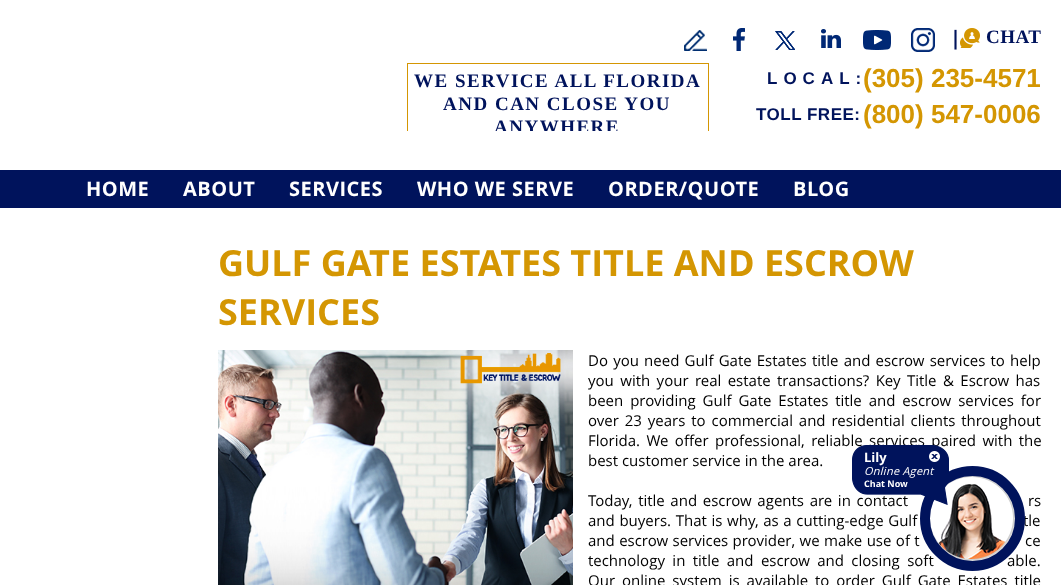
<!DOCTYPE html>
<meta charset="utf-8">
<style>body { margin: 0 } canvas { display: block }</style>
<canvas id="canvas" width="1061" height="585"></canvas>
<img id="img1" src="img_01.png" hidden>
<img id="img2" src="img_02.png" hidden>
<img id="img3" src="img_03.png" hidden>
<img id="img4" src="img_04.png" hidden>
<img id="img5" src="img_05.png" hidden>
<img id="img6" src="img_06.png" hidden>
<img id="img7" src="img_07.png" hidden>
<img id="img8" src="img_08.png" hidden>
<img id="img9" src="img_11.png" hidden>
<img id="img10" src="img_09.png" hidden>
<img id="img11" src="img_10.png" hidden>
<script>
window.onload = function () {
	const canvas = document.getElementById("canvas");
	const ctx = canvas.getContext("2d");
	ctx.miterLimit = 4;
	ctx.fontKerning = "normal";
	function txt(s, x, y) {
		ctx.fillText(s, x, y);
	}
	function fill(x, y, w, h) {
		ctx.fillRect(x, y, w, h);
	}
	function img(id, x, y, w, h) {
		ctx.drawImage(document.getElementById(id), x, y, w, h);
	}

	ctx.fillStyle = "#FFFFFF";
	fill(0, 0, 1061, 585);
	img("img1", 684, 30, 23, 21);
	img("img2", 733, 28, 12, 23);
	img("img3", 775, 31, 20, 19);
	img("img4", 821, 29, 20, 19);
	img("img5", 863, 30, 28, 20);
	img("img6", 911, 28, 24, 24);
	img("img7", 960, 28, 20, 20);
	ctx.save();
	ctx.beginPath();
	ctx.rect(0, 0, 1061, 131);
	ctx.clip();
	ctx.strokeStyle = "#D49602";
	ctx.strokeRect(407.5, 63.5, 301, 80);
	ctx.restore();
	ctx.fillStyle = "#00135C";
	fill(0, 170, 1061, 38);
	img("img8", 218, 350, 355, 235);
	ctx.font = "bold 20px Open Sans";
	txt("|", 950, 45);
	ctx.letterSpacing = "0.5px";
	ctx.font = "bold 19px Liberation Serif";
	txt("CHAT", 986, 43);
	ctx.letterSpacing = "1.5px";
	txt("WE SERVICE ALL FLORIDA", 414, 87);
	txt("AND CAN CLOSE YOU", 443, 110);
	ctx.save();
	ctx.beginPath();
	ctx.rect(0, 0, 1061, 131);
	ctx.clip();
	txt("ANYWHERE", 494, 133);
	ctx.restore();
	ctx.letterSpacing = "6px";
	ctx.font = "bold 17px Liberation Sans";
	txt("LOCAL:", 767, 84);
	ctx.letterSpacing = "0px";
	ctx.font = "bold 26px Liberation Sans";
	ctx.fillStyle = "#D49602";
	txt("(305) 235-4571", 863, 87);
	ctx.letterSpacing = "0.5px";
	ctx.font = "bold 17px Liberation Sans";
	ctx.fillStyle = "#00135C";
	txt("TOLL FREE:", 756, 120);
	ctx.letterSpacing = "0px";
	ctx.font = "bold 26px Liberation Sans";
	ctx.fillStyle = "#D49602";
	txt("(800) 547-0006", 863, 123);
	ctx.letterSpacing = "0.5px";
	ctx.font = "bold 20px Open Sans";
	ctx.fillStyle = "#FFFFFF";
	txt("HOME", 86, 196);
	txt("ABOUT", 183, 196);
	txt("SERVICES", 289, 196);
	txt("WHO WE SERVE", 417, 196);
	txt("ORDER/QUOTE", 608, 196);
	txt("BLOG", 793, 196);
	ctx.letterSpacing = "0px";
	ctx.font = "bold 36px Open Sans";
	ctx.fillStyle = "#D49602";
	txt("GULF GATE ESTATES TITLE AND ESCROW", 218, 276);
	txt("SERVICES", 218, 325);
	ctx.wordSpacing = "1.25px";
	ctx.font = "15px Open Sans";
	ctx.fillStyle = "#000000";
	txt("Do you need Gulf Gate Estates title and escrow services to help", 588, 366);
	ctx.wordSpacing = "2.5px";
	txt("you with your real estate transactions? Key Title & Escrow has", 588, 386);
	ctx.wordSpacing = "3px";
	txt("been providing Gulf Gate Estates title and escrow services for", 588, 406);
	ctx.wordSpacing = "2px";
	txt("over 23 years to commercial and residential clients throughout", 588, 426);
	ctx.wordSpacing = "2.5px";
	txt("Florida. We offer professional, reliable services paired with the", 588, 446);
	ctx.wordSpacing = "0px";
	txt("best customer service in the area.", 588, 466);
	ctx.wordSpacing = "1.75px";
	txt("Today, title and escrow agents are in contact", 588, 506);
	txt("rs", 1028, 506);
	ctx.wordSpacing = "0.75px";
	txt("and buyers. That is why, as a cutting-edge Gulf", 588, 526);
	txt("tle", 1023, 526);
	ctx.wordSpacing = "0.5px";
	txt("and escrow services provider, we make use of t", 588, 546);
	txt("ce", 1025, 546);
	ctx.wordSpacing = "3.5px";
	txt("technology in title and escrow and closing soft", 588, 566);
	txt("able.", 1007, 566);
	ctx.wordSpacing = "3px";
	txt("Our online system is available to order Gulf Gate Estates title", 588, 586);
	img("img9", 930, 476, 85, 85);
	ctx.beginPath();
	ctx.arc(972.5, 518.5, 47.5, 0, Math.PI * 2);
	ctx.strokeStyle = "#00135C";
	ctx.lineWidth = 10;
	ctx.stroke();
	img("img10", 852, 445, 97, 60);
	img("img11", 929, 451, 11, 11);
	ctx.wordSpacing = "0px";
	ctx.font = "bold 9px Open Sans";
	ctx.fillStyle = "#FFFFFF";
	txt("Chat Now", 864, 487);
	ctx.letterSpacing = "0.25px";
	ctx.font = "italic 11px Open Sans";
	txt("Online Agent", 864, 475);
	ctx.letterSpacing = "0px";
	ctx.font = "bold 13px Open Sans";
	txt("Lily", 864, 462);
};
</script>
